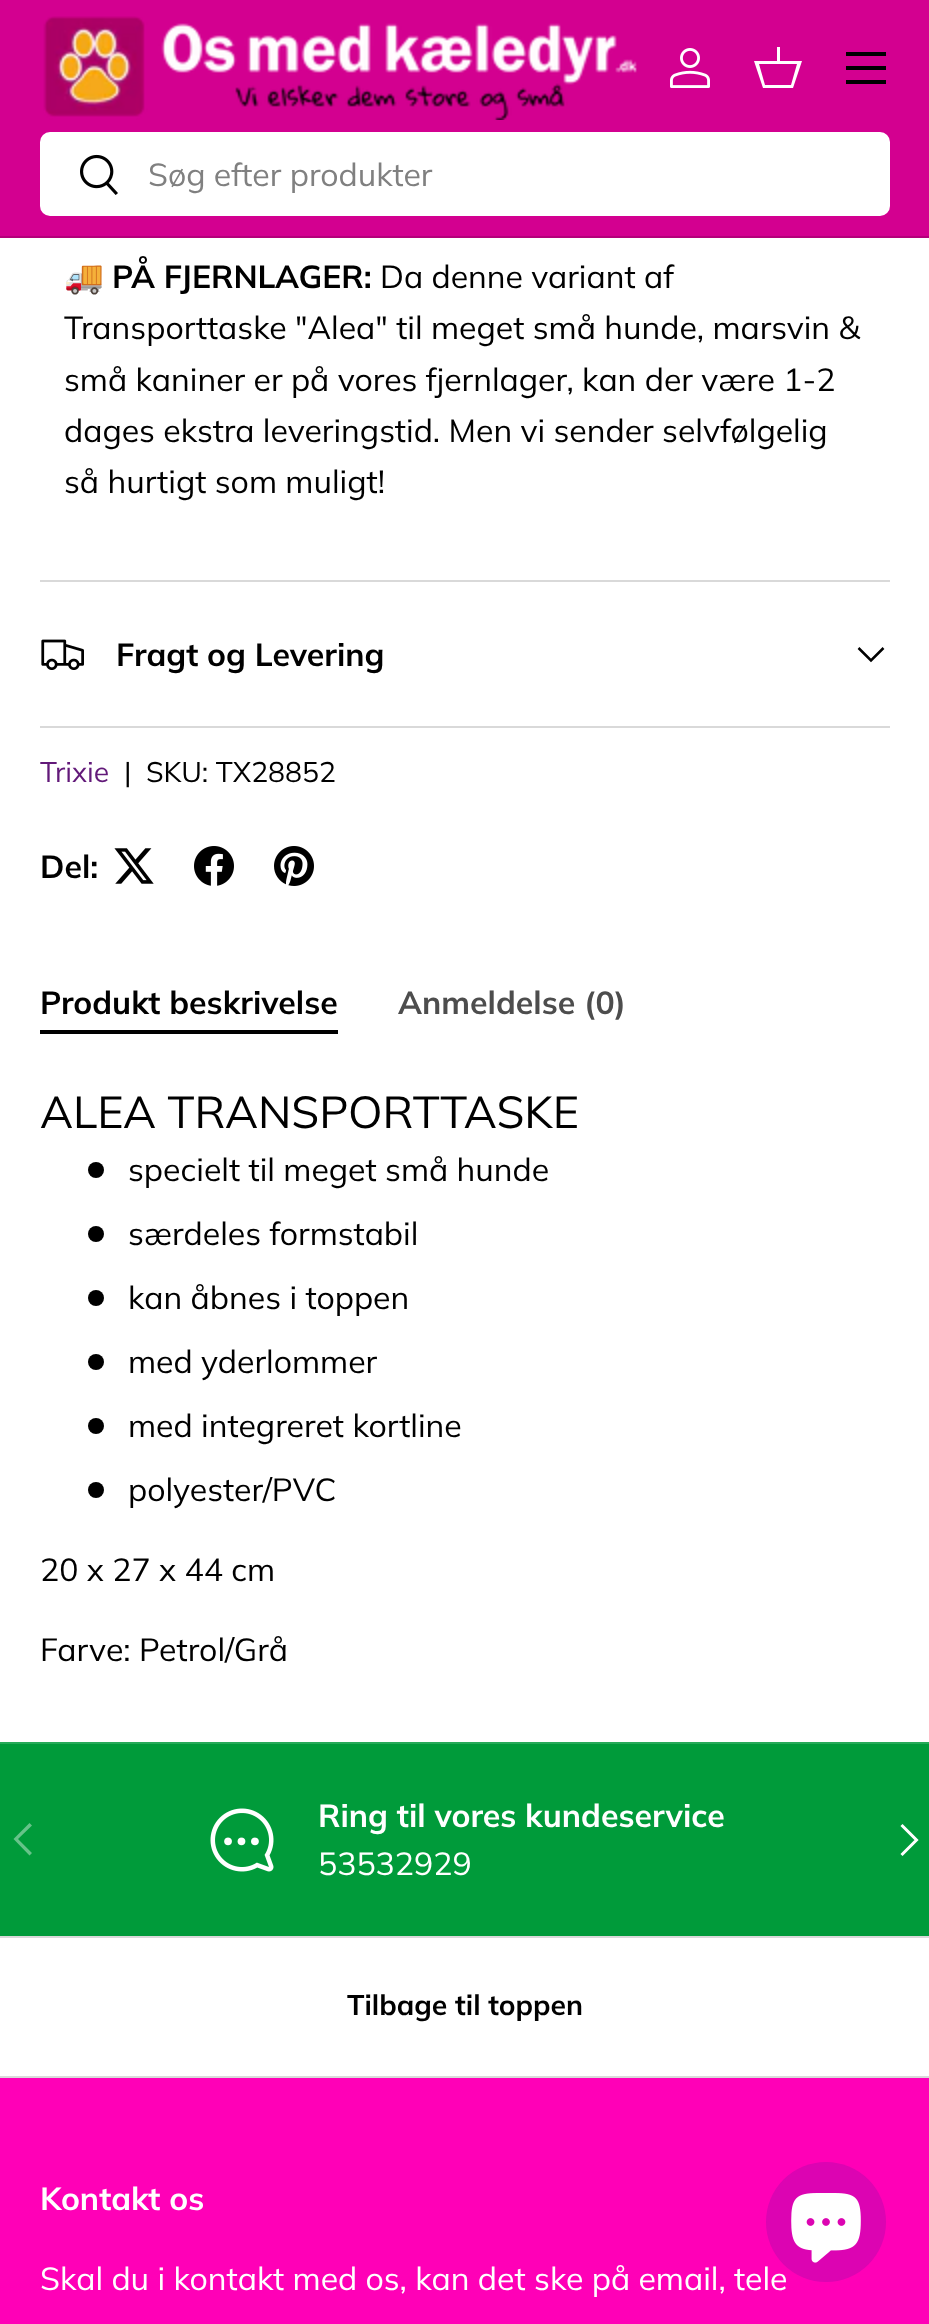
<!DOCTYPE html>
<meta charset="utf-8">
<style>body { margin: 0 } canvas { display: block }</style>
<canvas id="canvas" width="929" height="2324"></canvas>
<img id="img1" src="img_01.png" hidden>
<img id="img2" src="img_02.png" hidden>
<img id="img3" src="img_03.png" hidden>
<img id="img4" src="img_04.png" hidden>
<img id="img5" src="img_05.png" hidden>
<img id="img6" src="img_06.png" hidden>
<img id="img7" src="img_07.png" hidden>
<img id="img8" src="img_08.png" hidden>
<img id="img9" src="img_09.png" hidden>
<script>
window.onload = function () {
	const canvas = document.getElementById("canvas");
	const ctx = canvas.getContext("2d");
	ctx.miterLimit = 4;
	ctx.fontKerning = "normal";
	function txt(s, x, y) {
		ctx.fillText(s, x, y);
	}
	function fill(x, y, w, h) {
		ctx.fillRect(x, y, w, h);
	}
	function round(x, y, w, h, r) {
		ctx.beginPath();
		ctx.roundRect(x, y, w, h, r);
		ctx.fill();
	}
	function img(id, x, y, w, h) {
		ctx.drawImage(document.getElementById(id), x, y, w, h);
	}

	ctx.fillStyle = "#FFFFFF";
	fill(0, 0, 929, 2324);
	ctx.fillStyle = "#D30090";
	fill(0, 0, 929, 236);
	ctx.fillStyle = "#B3007A";
	fill(0, 236, 929, 2);
	img("img1", 43, 16, 594, 104);
	img("img2", 670, 48, 40, 40);
	ctx.fillStyle = "#FFFFFF";
	ctx.beginPath();
	ctx.moveTo(777, 61);
	ctx.lineTo(777, 47);
	ctx.lineTo(780, 47);
	ctx.lineTo(780, 61);
	ctx.lineTo(802, 61);
	ctx.lineTo(793, 88);
	ctx.lineTo(763, 88);
	ctx.lineTo(754, 61);
	ctx.closePath();
	ctx.moveTo(759, 64);
	ctx.lineTo(765, 85);
	ctx.lineTo(791, 85);
	ctx.lineTo(797, 64);
	ctx.closePath();
	ctx.fill();
	ctx.fillStyle = "#000000";
	fill(846, 52, 40, 4);
	fill(846, 80, 40, 4);
	fill(846, 66, 40, 4);
	ctx.fillStyle = "#FFFFFF";
	round(40, 132, 850, 84, 10);
	img("img3", 80, 154, 38, 41);
	ctx.fillStyle = "#D9D9D9";
	fill(40, 580, 850, 2);
	fill(40, 726, 850, 2);
	img("img4", 41, 639, 43, 31);
	ctx.beginPath();
	ctx.moveTo(883.5, 648);
	ctx.lineTo(871, 660.5);
	ctx.lineTo(858.5, 648);
	ctx.strokeStyle = "#000000";
	ctx.lineWidth = 2.5;
	ctx.stroke();
	img("img5", 114, 848, 40, 36);
	img("img6", 194, 846, 40, 40);
	img("img7", 274, 846, 40, 40);
	ctx.fillStyle = "#000000";
	fill(40, 1030, 298, 4);
	ctx.beginPath();
	ctx.arc(96, 1170, 8, 0, Math.PI * 2);
	ctx.fill();
	ctx.beginPath();
	ctx.arc(96, 1234, 8, 0, Math.PI * 2);
	ctx.fill();
	ctx.beginPath();
	ctx.arc(96, 1298, 8, 0, Math.PI * 2);
	ctx.fill();
	ctx.beginPath();
	ctx.arc(96, 1362, 8, 0, Math.PI * 2);
	ctx.fill();
	ctx.beginPath();
	ctx.arc(96, 1426, 8, 0, Math.PI * 2);
	ctx.fill();
	ctx.beginPath();
	ctx.arc(96, 1490, 8, 0, Math.PI * 2);
	ctx.fill();
	ctx.fillStyle = "#009B3A";
	fill(0, 1744, 929, 192);
	ctx.fillStyle = "#26AA58";
	fill(0, 1742, 929, 2);
	img("img8", 210, 1808, 64, 64);
	ctx.fillStyle = "#66C389";
	ctx.beginPath();
	ctx.moveTo(13.5, 1839);
	ctx.lineTo(29.5, 1823);
	ctx.lineTo(32, 1825.5);
	ctx.lineTo(18, 1839);
	ctx.lineTo(32, 1853);
	ctx.lineTo(29.5, 1855.5);
	ctx.closePath();
	ctx.fill();
	ctx.beginPath();
	ctx.moveTo(901.5, 1825);
	ctx.lineTo(916.5, 1840);
	ctx.lineTo(901.5, 1855);
	ctx.strokeStyle = "#FFFFFF";
	ctx.lineWidth = 3;
	ctx.stroke();
	ctx.fillStyle = "#D9D9D9";
	fill(0, 1936, 929, 2);
	fill(0, 2076, 929, 2);
	ctx.fillStyle = "#FF00B7";
	fill(0, 2078, 929, 246);
	ctx.font = "32px Muli";
	ctx.fillStyle = "#808080";
	txt("Søg efter produkter", 148, 186);
	ctx.font = "32px Noto Color Emoji";
	ctx.fillStyle = "#000000";
	txt("🚚", 64, 288);
	ctx.font = "bold 32px Muli";
	txt("PÅ FJERNLAGER:", 112, 288);
	ctx.font = "32px Muli";
	txt("Da denne variant af", 380, 288);
	txt("Transporttaske \"Alea\" til meget små hunde, marsvin &", 64, 339);
	txt("små kaniner er på vores fjernlager, kan der være 1-2", 64, 391);
	txt("dages ekstra leveringstid. Men vi sender selvfølgelig", 64, 442);
	txt("så hurtigt som muligt!", 64, 493);
	ctx.font = "bold 32px Muli";
	txt("Fragt og Levering", 116, 666);
	ctx.font = "28.25px Muli";
	ctx.fillStyle = "#621979";
	txt("Trixie", 40, 782);
	ctx.fillStyle = "#000000";
	txt("|", 124, 782);
	txt("SKU: TX28852", 146, 782);
	ctx.font = "bold 32px Muli";
	txt("Del:", 40, 878);
	txt("Produkt beskrivelse", 40, 1014);
	ctx.fillStyle = "#4D4D4D";
	txt("Anmeldelse (0)", 398, 1014);
	ctx.font = "44.75px Muli";
	ctx.fillStyle = "#000000";
	txt("ALEA TRANSPORTTASKE", 40, 1128);
	ctx.font = "32px Muli";
	txt("specielt til meget små hunde", 128, 1181);
	txt("særdeles formstabil", 128, 1245);
	txt("kan åbnes i toppen", 128, 1309);
	txt("med yderlommer", 128, 1373);
	txt("med integreret kortline", 128, 1437);
	txt("polyester/PVC", 128, 1501);
	txt("20 x 27 x 44 cm", 40, 1581);
	txt("Farve: Petrol/Grå", 40, 1661);
	ctx.font = "bold 32px Muli";
	ctx.fillStyle = "#FFFFFF";
	txt("Ring til vores kundeservice", 318, 1827);
	ctx.font = "32px Muli";
	txt("53532929", 318, 1875);
	ctx.font = "bold 28.25px Muli";
	ctx.fillStyle = "#000000";
	txt("Tilbage til toppen", 347, 2015);
	ctx.font = "bold 32px Muli";
	ctx.fillStyle = "#FFFFFF";
	txt("Kontakt os", 40, 2210);
	ctx.font = "32px Muli";
	txt("Skal du i kontakt med os, kan det ske på email, tele", 40, 2290);
	ctx.fillStyle = "#DC04B2";
	ctx.beginPath();
	ctx.arc(826, 2222, 60, 0, Math.PI * 2);
	ctx.fill();
	img("img9", 791, 2193, 70, 70);
};
</script>
